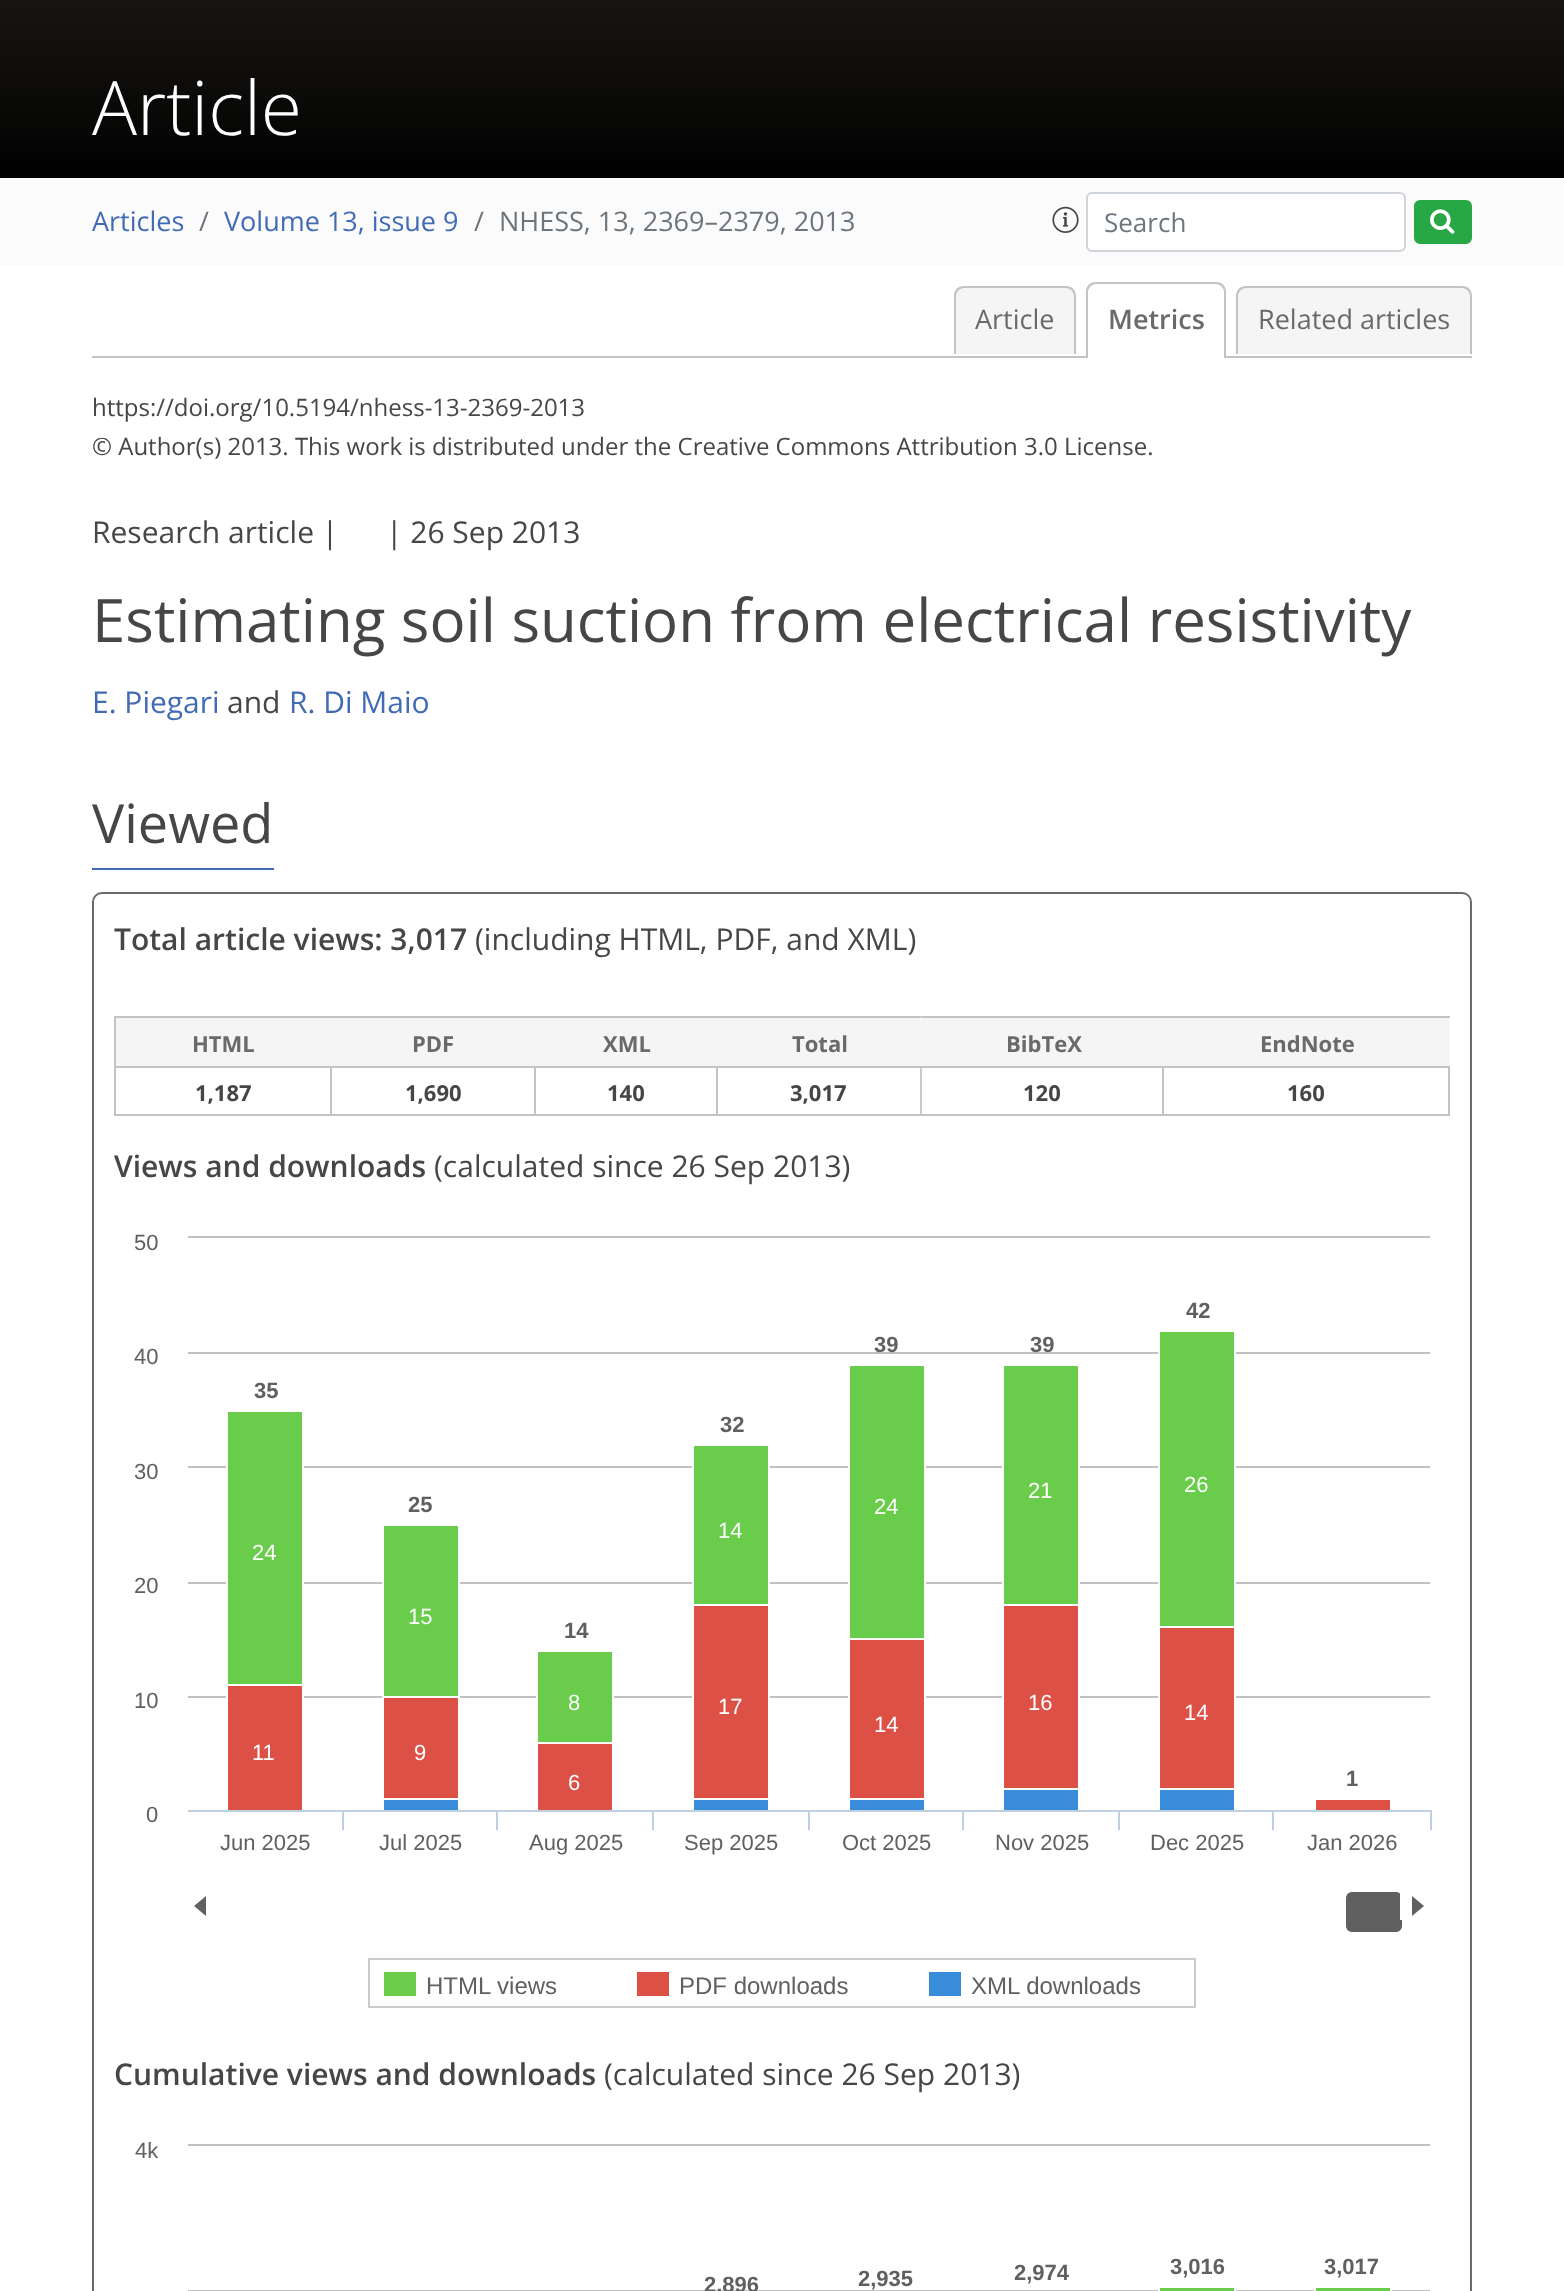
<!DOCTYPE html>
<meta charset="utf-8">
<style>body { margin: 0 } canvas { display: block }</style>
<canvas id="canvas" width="1564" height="2291"></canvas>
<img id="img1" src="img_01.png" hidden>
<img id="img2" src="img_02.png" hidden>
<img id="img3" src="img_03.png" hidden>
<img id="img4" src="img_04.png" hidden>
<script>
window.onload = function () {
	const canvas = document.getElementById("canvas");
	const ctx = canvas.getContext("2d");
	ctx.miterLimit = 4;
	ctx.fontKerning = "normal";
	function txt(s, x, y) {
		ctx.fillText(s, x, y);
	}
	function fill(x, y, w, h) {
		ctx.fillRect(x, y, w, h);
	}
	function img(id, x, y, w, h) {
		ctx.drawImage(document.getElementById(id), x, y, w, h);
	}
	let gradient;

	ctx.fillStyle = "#FFFFFF";
	fill(0, 0, 1564, 2291);
	gradient = ctx.createLinearGradient(782, 178, 782, -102);
	gradient.addColorStop(0, "#000000");
	gradient.addColorStop(0.19, "#070706");
	gradient.addColorStop(0.34, "#0D0C0B");
	gradient.addColorStop(0.47, "#11100E");
	gradient.addColorStop(0.56, "#141311");
	gradient.addColorStop(0.65, "#171513");
	gradient.addColorStop(0.73, "#191714");
	gradient.addColorStop(0.8, "#1A1815");
	gradient.addColorStop(0.86, "#1B1916");
	gradient.addColorStop(0.91, "#1B1917");
	gradient.addColorStop(0.95, "#1C1A17");
	gradient.addColorStop(1, "#1C1A17");
	ctx.fillStyle = gradient;
	fill(0, 0, 1564, 178);
	ctx.fillStyle = "#FBFBFB";
	fill(0, 178, 1564, 88);
	img("img1", 1052, 206, 27, 27);
	ctx.fillStyle = "#FFFFFF";
	ctx.beginPath();
	ctx.roundRect(1087, 193, 318, 58, 5);
	ctx.fill();
	ctx.strokeStyle = "#CED4DA";
	ctx.lineWidth = 2;
	ctx.stroke();
	ctx.fillStyle = "#28A745";
	ctx.beginPath();
	ctx.roundRect(1415, 201, 56, 42, 5);
	ctx.fill();
	ctx.strokeStyle = "#28A745";
	ctx.stroke();
	img("img2", 1430, 209, 25, 25);
	ctx.fillStyle = "#C3C3C3";
	fill(92, 356, 1380, 2);
	ctx.fillStyle = "#F5F5F5";
	ctx.beginPath();
	ctx.roundRect(954, 286, 122, 68, [10, 10, 0, 0]);
	ctx.fill();
	ctx.fillStyle = "#C3C3C3";
	ctx.beginPath();
	ctx.moveTo(964, 286);
	ctx.lineTo(1066, 286);
	ctx.bezierCurveTo(1072, 286, 1076, 290, 1076, 296);
	ctx.lineTo(1076, 354);
	ctx.lineTo(954, 354);
	ctx.lineTo(954, 296);
	ctx.bezierCurveTo(954, 290, 958, 286, 964, 286);
	ctx.closePath();
	ctx.moveTo(964, 288);
	ctx.lineTo(1066, 288);
	ctx.bezierCurveTo(1070, 288, 1074, 292, 1074, 296);
	ctx.lineTo(1074, 354);
	ctx.lineTo(956, 354);
	ctx.lineTo(956, 296);
	ctx.bezierCurveTo(956, 292, 960, 288, 964, 288);
	ctx.closePath();
	ctx.fill("evenodd");
	ctx.fillStyle = "#FFFFFF";
	ctx.beginPath();
	ctx.roundRect(1086, 282, 140, 76, [10, 10, 0, 0]);
	ctx.fill();
	ctx.fillStyle = "#C3C3C3";
	ctx.beginPath();
	ctx.moveTo(1096, 282);
	ctx.lineTo(1216, 282);
	ctx.bezierCurveTo(1222, 282, 1226, 286, 1226, 292);
	ctx.lineTo(1226, 358);
	ctx.lineTo(1086, 358);
	ctx.lineTo(1086, 292);
	ctx.bezierCurveTo(1086, 286, 1090, 282, 1096, 282);
	ctx.closePath();
	ctx.moveTo(1096, 284);
	ctx.lineTo(1216, 284);
	ctx.bezierCurveTo(1220, 284, 1224, 288, 1224, 292);
	ctx.lineTo(1224, 358);
	ctx.lineTo(1088, 358);
	ctx.lineTo(1088, 292);
	ctx.bezierCurveTo(1088, 288, 1092, 284, 1096, 284);
	ctx.closePath();
	ctx.fill("evenodd");
	ctx.fillStyle = "#F5F5F5";
	ctx.beginPath();
	ctx.roundRect(1236, 286, 236, 68, [10, 10, 0, 0]);
	ctx.fill();
	ctx.fillStyle = "#C3C3C3";
	ctx.beginPath();
	ctx.moveTo(1246, 286);
	ctx.lineTo(1462, 286);
	ctx.bezierCurveTo(1468, 286, 1472, 290, 1472, 296);
	ctx.lineTo(1472, 354);
	ctx.lineTo(1236, 354);
	ctx.lineTo(1236, 296);
	ctx.bezierCurveTo(1236, 290, 1240, 286, 1246, 286);
	ctx.closePath();
	ctx.moveTo(1246, 288);
	ctx.lineTo(1462, 288);
	ctx.bezierCurveTo(1466, 288, 1470, 292, 1470, 296);
	ctx.lineTo(1470, 354);
	ctx.lineTo(1238, 354);
	ctx.lineTo(1238, 296);
	ctx.bezierCurveTo(1238, 292, 1242, 288, 1246, 288);
	ctx.closePath();
	ctx.fill("evenodd");
	ctx.fillStyle = "#416BB4";
	fill(92, 868, 182, 2);
	ctx.beginPath();
	ctx.roundRect(93, 893, 1378, 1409, 9);
	ctx.strokeStyle = "#6A6A6A";
	ctx.stroke();
	ctx.fillStyle = "#C3C3C3";
	fill(114, 1016, 1336, 2);
	fill(1162, 1066, 288, 2);
	fill(1448, 1066, 2, 50);
	fill(1162, 1114, 288, 2);
	fill(1162, 1066, 2, 50);
	fill(920, 1114, 244, 2);
	ctx.fillStyle = "#CCCCCC";
	fill(920, 1066, 2, 50);
	ctx.fillStyle = "#C3C3C3";
	fill(716, 1114, 206, 2);
	fill(716, 1066, 2, 50);
	fill(534, 1066, 184, 2);
	fill(534, 1114, 184, 2);
	fill(534, 1066, 2, 50);
	fill(330, 1066, 206, 2);
	fill(330, 1114, 206, 2);
	fill(330, 1066, 2, 50);
	fill(114, 1066, 218, 2);
	fill(114, 1114, 218, 2);
	fill(114, 1066, 2, 50);
	fill(114, 1016, 2, 52);
	fill(1448, 1016, 2, 52);
	ctx.fillStyle = "#F5F5F5";
	fill(116, 1018, 1334, 48);
	ctx.fillStyle = "#CCCCCC";
	fill(920, 1016, 2, 2);
	ctx.fillStyle = "#C3C3C3";
	fill(716, 1066, 448, 2);
	img("img3", 188, 1236, 1244, 772);
	ctx.beginPath();
	ctx.moveTo(385, 1983);
	ctx.lineTo(390.5, 1988);
	ctx.lineTo(401, 1975);
	ctx.strokeStyle = "#69CD4B";
	ctx.lineWidth = 4.2;
	ctx.stroke();
	img("img4", 188, 2144, 1242, 147);
	ctx.font = "300 75px Open Sans";
	ctx.fillStyle = "#FFFFFF";
	txt("Article", 92, 135);
	ctx.font = "27px Open Sans";
	ctx.fillStyle = "#416BB4";
	txt("Articles", 92, 231);
	ctx.fillStyle = "#6C757D";
	txt("/", 199, 231);
	ctx.fillStyle = "#416BB4";
	txt("Volume 13, issue 9", 224, 231);
	ctx.fillStyle = "#6C757D";
	txt("/", 474, 231);
	txt("NHESS, 13, 2369–2379, 2013", 499, 231);
	ctx.font = "26px Open Sans";
	txt("Search", 1104, 232);
	ctx.font = "27px Open Sans";
	ctx.fillStyle = "#6A6A6A";
	txt("Article", 975, 329);
	ctx.font = "600 27px Open Sans";
	txt("Metrics", 1108, 329);
	ctx.font = "27px Open Sans";
	txt("Related articles", 1258, 329);
	ctx.font = "24px Open Sans";
	ctx.fillStyle = "#464646";
	txt("https://doi.org/10.5194/nhess-13-2369-2013", 92, 416);
	txt("© Author(s) 2013. This work is distributed under the Creative Commons Attribution 3.0 License.", 92, 455);
	ctx.font = "30px Open Sans";
	txt("Research article |", 92, 543);
	txt("| 26 Sep 2013", 386, 543);
	ctx.font = "60px Open Sans";
	txt("Estimating soil suction from electrical resistivity", 92, 642);
	ctx.font = "30px Open Sans";
	ctx.fillStyle = "#416BB4";
	txt("E. Piegari", 92, 713);
	ctx.fillStyle = "#464646";
	txt("and", 227, 713);
	ctx.fillStyle = "#416BB4";
	txt("R. Di Maio", 289, 713);
	ctx.font = "54px Open Sans";
	ctx.fillStyle = "#464646";
	txt("Viewed", 92, 843);
	ctx.font = "600 30px Open Sans";
	txt("Total article views: 3,017", 114, 950);
	ctx.font = "30px Open Sans";
	txt("(including HTML, PDF, and XML)", 475, 950);
	ctx.font = "bold 22px Open Sans";
	ctx.fillStyle = "#6A6A6A";
	txt("HTML", 192, 1052);
	txt("PDF", 412, 1052);
	txt("XML", 603, 1052);
	txt("Total", 792, 1052);
	txt("BibTeX", 1006, 1052);
	txt("EndNote", 1260, 1052);
	ctx.fillStyle = "#464646";
	txt("1,187", 195, 1101);
	txt("1,690", 405, 1101);
	txt("140", 607, 1101);
	txt("3,017", 790, 1101);
	txt("120", 1023, 1101);
	txt("160", 1287, 1101);
	ctx.font = "600 30px Open Sans";
	txt("Views and downloads", 114, 1177);
	ctx.font = "30px Open Sans";
	txt("(calculated since 26 Sep 2013)", 434, 1177);
	ctx.font = "22px Liberation Sans";
	ctx.fillStyle = "#606060";
	txt("50", 134, 1250);
	ctx.font = "bold 22px Liberation Sans";
	txt("42", 1186, 1318);
	txt("39", 874, 1352);
	txt("39", 1030, 1352);
	ctx.font = "22px Liberation Sans";
	txt("40", 134, 1364);
	ctx.font = "bold 22px Liberation Sans";
	txt("35", 254, 1398);
	txt("32", 720, 1432);
	ctx.font = "22px Liberation Sans";
	txt("30", 134, 1479);
	ctx.fillStyle = "#FFFFFF";
	txt("21", 1028, 1498);
	txt("26", 1184, 1492);
	ctx.font = "bold 22px Liberation Sans";
	ctx.fillStyle = "#606060";
	txt("25", 408, 1512);
	ctx.font = "22px Liberation Sans";
	ctx.fillStyle = "#FFFFFF";
	txt("24", 874, 1514);
	txt("14", 718, 1538);
	txt("24", 252, 1560);
	ctx.fillStyle = "#606060";
	txt("20", 134, 1593);
	ctx.fillStyle = "#FFFFFF";
	txt("15", 408, 1624);
	ctx.font = "bold 22px Liberation Sans";
	ctx.fillStyle = "#606060";
	txt("14", 564, 1638);
	ctx.font = "22px Liberation Sans";
	txt("10", 134, 1708);
	ctx.fillStyle = "#FFFFFF";
	txt("8", 568, 1710);
	txt("17", 718, 1714);
	txt("16", 1028, 1710);
	txt("14", 1184, 1720);
	txt("14", 874, 1732);
	txt("11", 252, 1760);
	txt("9", 414, 1760);
	txt("6", 568, 1790);
	ctx.font = "bold 22px Liberation Sans";
	ctx.fillStyle = "#606060";
	txt("1", 1346, 1786);
	ctx.font = "22px Liberation Sans";
	txt("0", 146, 1822);
	txt("Jun 2025", 220, 1850);
	txt("Jul 2025", 379, 1850);
	txt("Aug 2025", 529, 1850);
	txt("Sep 2025", 684, 1850);
	txt("Oct 2025", 842, 1850);
	txt("Nov 2025", 995, 1850);
	txt("Dec 2025", 1150, 1850);
	txt("Jan 2026", 1307, 1850);
	ctx.font = "24px Liberation Sans";
	txt("HTML views", 426, 1994);
	txt("PDF downloads", 679, 1994);
	txt("XML downloads", 971, 1994);
	ctx.font = "600 30px Open Sans";
	ctx.fillStyle = "#464646";
	txt("Cumulative views and downloads", 114, 2085);
	ctx.font = "30px Open Sans";
	txt("(calculated since 26 Sep 2013)", 604, 2085);
	ctx.font = "22px Liberation Sans";
	ctx.fillStyle = "#606060";
	txt("4k", 135, 2158);
	ctx.font = "bold 22px Liberation Sans";
	txt("2,896", 704, 2292);
	txt("2,935", 858, 2286);
	txt("2,974", 1014, 2280);
	txt("3,016", 1170, 2274);
	txt("3,017", 1324, 2274);
};
</script>
